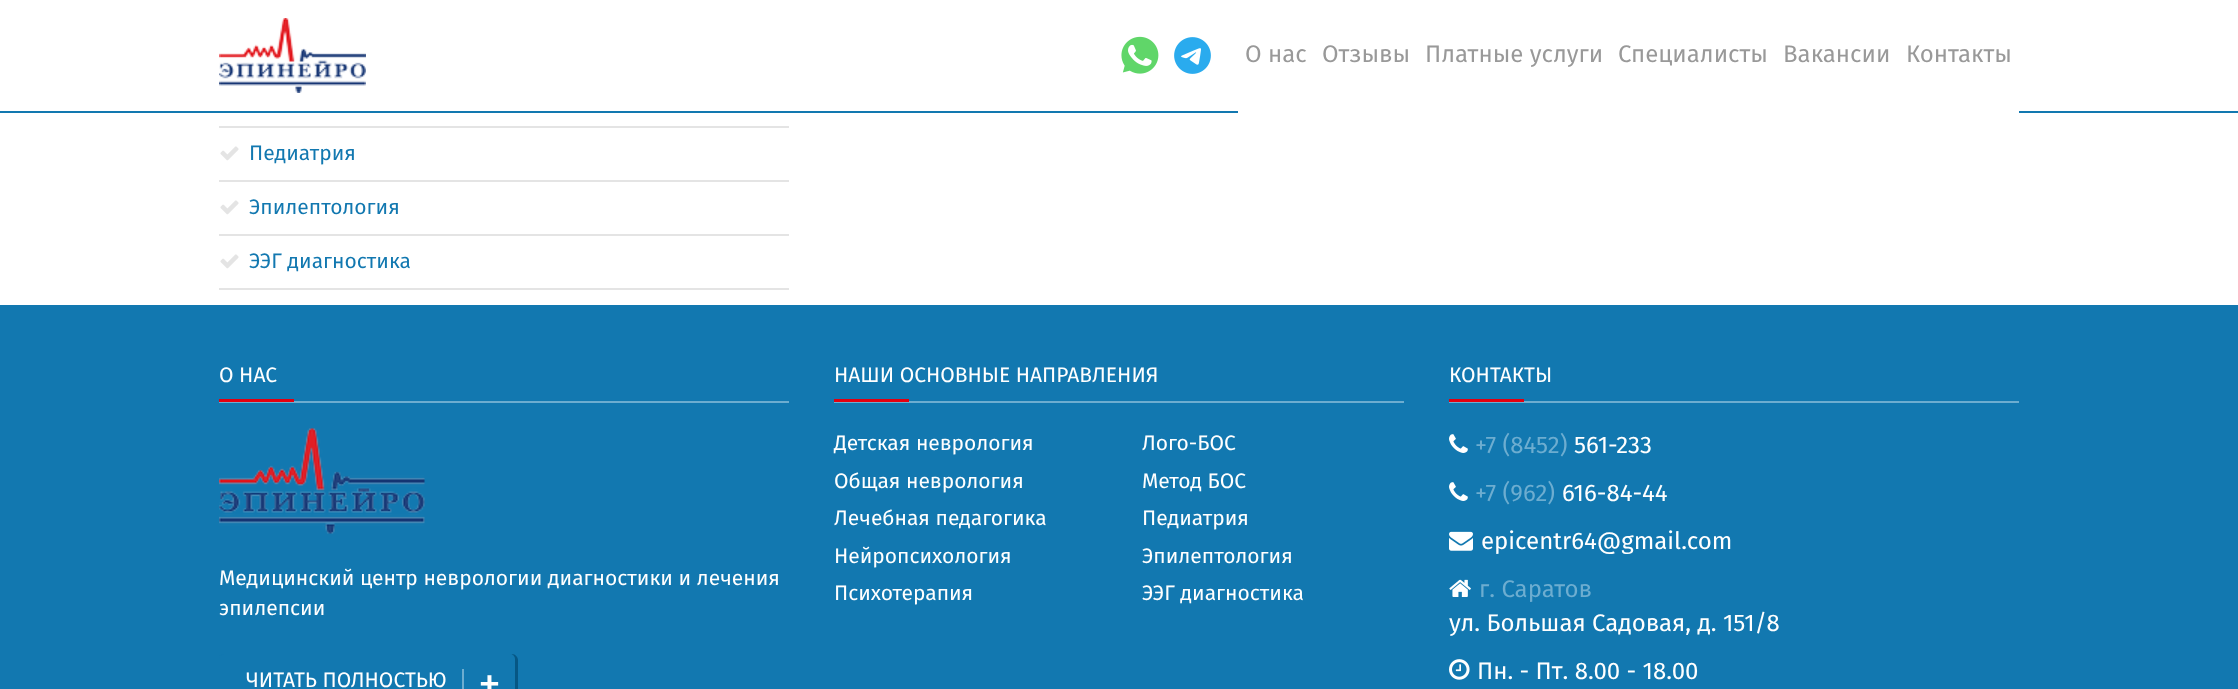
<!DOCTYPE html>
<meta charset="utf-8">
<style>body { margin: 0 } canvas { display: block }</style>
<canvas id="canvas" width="2238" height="689"></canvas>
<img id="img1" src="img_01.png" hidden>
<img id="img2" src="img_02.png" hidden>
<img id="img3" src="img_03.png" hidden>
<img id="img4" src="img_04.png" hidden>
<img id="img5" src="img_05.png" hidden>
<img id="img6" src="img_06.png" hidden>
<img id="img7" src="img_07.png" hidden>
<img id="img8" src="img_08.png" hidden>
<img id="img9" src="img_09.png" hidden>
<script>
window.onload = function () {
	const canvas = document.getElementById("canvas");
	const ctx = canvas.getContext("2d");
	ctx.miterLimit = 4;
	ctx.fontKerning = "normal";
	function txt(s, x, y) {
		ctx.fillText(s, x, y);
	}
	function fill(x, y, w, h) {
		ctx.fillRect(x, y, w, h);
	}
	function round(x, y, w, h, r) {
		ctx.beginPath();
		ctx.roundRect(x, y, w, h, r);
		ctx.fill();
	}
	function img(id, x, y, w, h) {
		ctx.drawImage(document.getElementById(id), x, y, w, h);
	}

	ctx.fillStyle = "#FFFFFF";
	fill(0, 0, 2238, 689);
	ctx.fillStyle = "#1278B0";
	fill(0, 111, 2238, 2);
	img("img1", 219, 18, 147, 75);
	img("img2", 1121, 36, 38, 38);
	img("img3", 1174, 37, 37, 37);
	ctx.fillStyle = "#FFFFFF";
	fill(1238, 111, 781, 2);
	ctx.fillStyle = "#E4E4E4";
	fill(219, 126, 570, 2);
	fill(219, 180, 570, 2);
	img("img4", 220, 146, 19, 15);
	fill(219, 234, 570, 2);
	img("img4", 220, 200, 19, 15);
	fill(219, 288, 570, 2);
	img("img4", 220, 254, 19, 15);
	ctx.fillStyle = "#1278B0";
	fill(0, 305, 2238, 384);
	ctx.fillStyle = "#6DADD0";
	fill(219, 401, 570, 2);
	ctx.fillStyle = "#E3000F";
	fill(219, 399, 75, 3);
	img("img5", 219, 428, 206, 106);
	ctx.fillStyle = "#065784";
	ctx.beginPath();
	ctx.moveTo(512, 654);
	ctx.lineTo(510, 654);
	ctx.bezierCurveTo(512, 654, 514, 656, 514, 658);
	ctx.lineTo(514, 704);
	ctx.bezierCurveTo(514, 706, 512, 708, 510, 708);
	ctx.lineTo(224, 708);
	ctx.bezierCurveTo(221, 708, 219, 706, 219, 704);
	ctx.lineTo(219, 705);
	ctx.bezierCurveTo(219, 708, 222, 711, 225, 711);
	ctx.lineTo(512, 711);
	ctx.bezierCurveTo(515, 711, 518, 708, 518, 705);
	ctx.lineTo(518, 660);
	ctx.bezierCurveTo(518, 657, 515, 654, 512, 654);
	ctx.closePath();
	ctx.fill();
	ctx.fillStyle = "#1278B0";
	round(219, 654, 296, 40, 5);
	ctx.fillStyle = "#6DADD0";
	fill(462, 669, 2, 20);
	fill(834, 401, 570, 2);
	ctx.fillStyle = "#E3000F";
	fill(834, 399, 75, 3);
	ctx.fillStyle = "#6DADD0";
	fill(1449, 401, 570, 2);
	ctx.fillStyle = "#E3000F";
	fill(1449, 399, 75, 3);
	img("img6", 1449, 434, 19, 19);
	img("img6", 1449, 482, 19, 19);
	img("img7", 1449, 531, 24, 20);
	img("img8", 1449, 579, 22, 18);
	img("img9", 1449, 659, 21, 21);
	ctx.font = "24px Fira Sans";
	ctx.fillStyle = "#999999";
	txt("О нас", 1245, 62);
	txt("Отзывы", 1322, 62);
	txt("Платные услуги", 1425, 62);
	txt("Специалисты", 1618, 62);
	txt("Вакансии", 1783, 62);
	txt("Контакты", 1906, 62);
	ctx.font = "21px Fira Sans";
	ctx.fillStyle = "#1278B0";
	txt("Педиатрия", 249, 160);
	txt("Эпилептология", 249, 214);
	txt("ЭЭГ диагностика", 249, 268);
	ctx.fillStyle = "#FFFFFF";
	txt("О НАС", 219, 382);
	txt("Медицинский центр неврологии диагностики и лечения", 219, 585);
	txt("эпилепсии", 219, 615);
	txt("ЧИТАТЬ ПОЛНОСТЬЮ", 246, 687);
	ctx.font = "46px Fira Sans";
	txt("+", 478, 699);
	ctx.font = "21px Fira Sans";
	txt("НАШИ ОСНОВНЫЕ НАПРАВЛЕНИЯ", 834, 382);
	txt("Детская неврология", 834, 450);
	txt("Общая неврология", 834, 488);
	txt("Лечебная педагогика", 834, 525);
	txt("Нейропсихология", 834, 563);
	txt("Психотерапия", 834, 600);
	txt("Лого-БОС", 1142, 450);
	txt("Метод БОС", 1142, 488);
	txt("Педиатрия", 1142, 525);
	txt("Эпилептология", 1142, 563);
	txt("ЭЭГ диагностика", 1142, 600);
	txt("КОНТАКТЫ", 1449, 382);
	ctx.font = "24px Fira Sans";
	ctx.fillStyle = "#6DADD0";
	txt("+7 (8452)", 1475, 453);
	ctx.fillStyle = "#FFFFFF";
	txt("561-233", 1574, 453);
	ctx.fillStyle = "#6DADD0";
	txt("+7 (962)", 1475, 501);
	ctx.fillStyle = "#FFFFFF";
	txt("616-84-44", 1562, 501);
	txt("epicentr64@gmail.com", 1481, 549);
	ctx.fillStyle = "#6DADD0";
	txt("г. Саратов", 1479, 597);
	ctx.fillStyle = "#FFFFFF";
	txt("ул. Большая Садовая, д. 151/8", 1449, 631);
	txt("Пн. - Пт. 8.00 - 18.00", 1477, 679);
};
</script>
